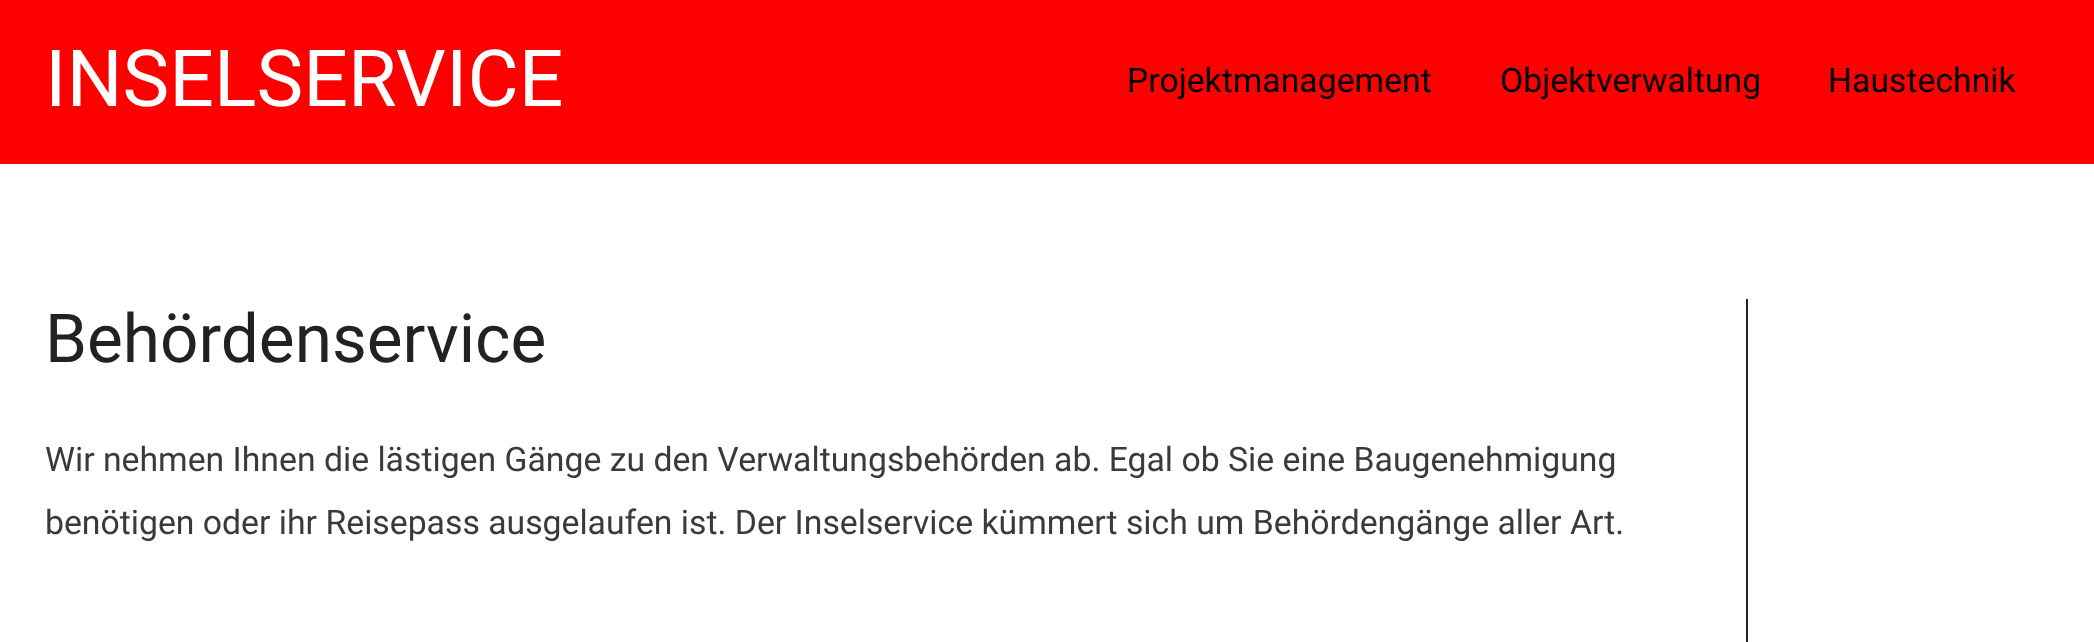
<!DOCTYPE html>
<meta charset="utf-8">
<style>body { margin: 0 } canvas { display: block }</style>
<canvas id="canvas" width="2094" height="642"></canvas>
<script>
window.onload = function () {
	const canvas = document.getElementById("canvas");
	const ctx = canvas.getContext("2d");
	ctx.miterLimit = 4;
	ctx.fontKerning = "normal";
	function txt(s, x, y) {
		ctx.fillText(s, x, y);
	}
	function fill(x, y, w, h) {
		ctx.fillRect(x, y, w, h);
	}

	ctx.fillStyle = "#FFFFFF";
	fill(0, 0, 2094, 642);
	ctx.fillStyle = "#FD0000";
	fill(0, 0, 2094, 164);
	ctx.fillStyle = "#222222";
	fill(1746, 299, 2, 343);
	ctx.font = "78.75px Roboto";
	ctx.fillStyle = "#FFFFFF";
	txt("INSELSERVICE", 45, 106);
	ctx.font = "33.75px Roboto";
	ctx.fillStyle = "#000000";
	txt("Projektmanagement", 1127, 92);
	txt("Objektverwaltung", 1500, 92);
	txt("Haustechnik", 1828, 92);
	ctx.font = "67.5px Roboto";
	ctx.fillStyle = "#222222";
	txt("Behördenservice", 45, 362);
	ctx.font = "33.75px Roboto";
	ctx.fillStyle = "#3A3A3A";
	txt("Wir nehmen Ihnen die lästigen Gänge zu den Verwaltungsbehörden ab. Egal ob Sie eine Baugenehmigung", 45, 471);
	txt("benötigen oder ihr Reisepass ausgelaufen ist. Der Inselservice kümmert sich um Behördengänge aller Art.", 45, 534);
};
</script>
